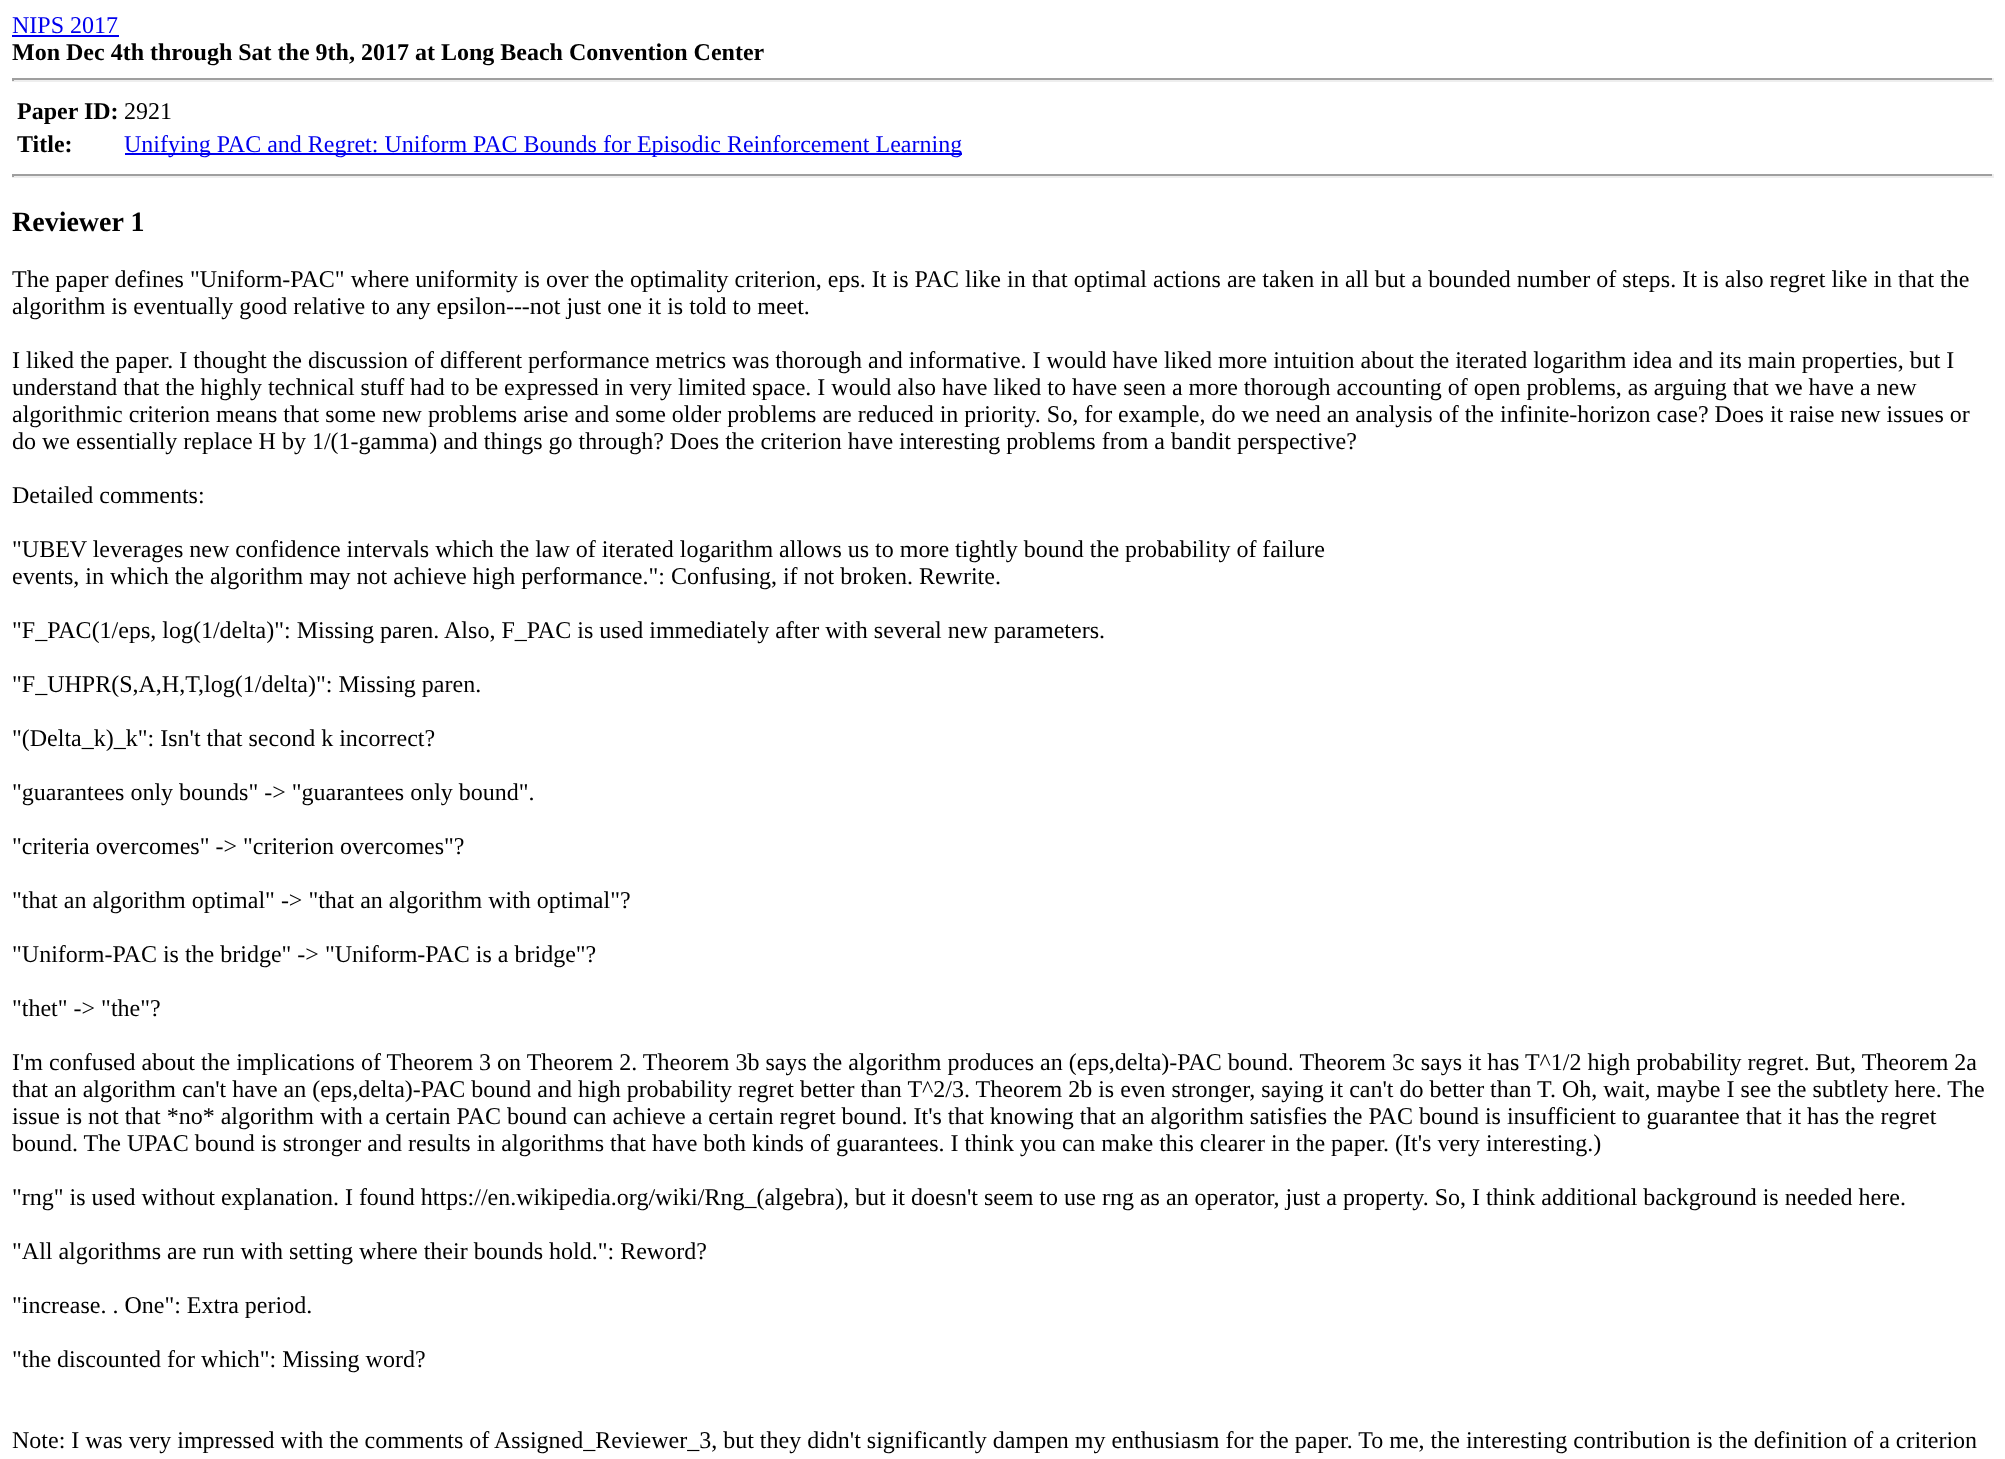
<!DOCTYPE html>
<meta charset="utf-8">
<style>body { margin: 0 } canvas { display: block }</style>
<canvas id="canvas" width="2005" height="1459"></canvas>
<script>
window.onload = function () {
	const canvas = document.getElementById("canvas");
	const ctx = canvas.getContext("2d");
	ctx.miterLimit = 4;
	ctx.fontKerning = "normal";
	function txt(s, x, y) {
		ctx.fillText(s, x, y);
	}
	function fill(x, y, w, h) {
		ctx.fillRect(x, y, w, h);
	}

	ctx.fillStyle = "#FFFFFF";
	fill(0, 0, 2005, 1459);
	ctx.fillStyle = "#0000EE";
	fill(12, 35, 107, 2);
	ctx.fillStyle = "#9F9F9F";
	fill(12, 78, 1982, 2);
	ctx.fillStyle = "#EEEEEE";
	fill(1992, 78, 2, 3);
	fill(12, 80, 1982, 2);
	ctx.fillStyle = "#9F9F9F";
	fill(12, 78, 2, 3);
	ctx.fillStyle = "#0000EE";
	fill(125, 153, 837, 2);
	ctx.fillStyle = "#9F9F9F";
	fill(12, 174, 1982, 2);
	ctx.fillStyle = "#EEEEEE";
	fill(1992, 174, 2, 3);
	fill(12, 176, 1982, 2);
	ctx.fillStyle = "#9F9F9F";
	fill(12, 174, 2, 3);
	ctx.font = "24px Liberation Serif";
	ctx.fillStyle = "#0000EE";
	txt("NIPS 2017", 12, 33);
	ctx.font = "bold 24px Liberation Serif";
	ctx.fillStyle = "#000000";
	txt("Mon Dec 4th through Sat the 9th, 2017 at Long Beach Convention Center", 12, 60);
	txt("Paper ID:", 17, 119);
	ctx.font = "24px Liberation Serif";
	txt("2921", 124, 119);
	ctx.font = "bold 24px Liberation Serif";
	txt("Title:", 17, 152);
	ctx.font = "24px Liberation Serif";
	ctx.fillStyle = "#0000EE";
	txt("Unifying PAC and Regret: Uniform PAC Bounds for Episodic Reinforcement Learning", 124, 152);
	ctx.font = "bold 28px Liberation Serif";
	ctx.fillStyle = "#000000";
	txt("Reviewer 1", 12, 231);
	ctx.font = "24px Liberation Serif";
	txt("The paper defines \"Uniform-PAC\" where uniformity is over the optimality criterion, eps. It is PAC like in that optimal actions are taken in all but a bounded number of steps. It is also regret like in that the", 12, 287);
	txt("algorithm is eventually good relative to any epsilon---not just one it is told to meet.", 12, 314);
	txt("I liked the paper. I thought the discussion of different performance metrics was thorough and informative. I would have liked more intuition about the iterated logarithm idea and its main properties, but I", 12, 368);
	txt("understand that the highly technical stuff had to be expressed in very limited space. I would also have liked to have seen a more thorough accounting of open problems, as arguing that we have a new", 12, 395);
	txt("algorithmic criterion means that some new problems arise and some older problems are reduced in priority. So, for example, do we need an analysis of the infinite-horizon case? Does it raise new issues or", 12, 422);
	txt("do we essentially replace H by 1/(1-gamma) and things go through? Does the criterion have interesting problems from a bandit perspective?", 12, 449);
	txt("Detailed comments:", 12, 503);
	txt("\"UBEV leverages new confidence intervals which the law of iterated logarithm allows us to more tightly bound the probability of failure", 12, 557);
	txt("events, in which the algorithm may not achieve high performance.\": Confusing, if not broken. Rewrite.", 12, 584);
	txt("\"F_PAC(1/eps, log(1/delta)\": Missing paren. Also, F_PAC is used immediately after with several new parameters.", 12, 638);
	txt("\"F_UHPR(S,A,H,T,log(1/delta)\": Missing paren.", 12, 692);
	txt("\"(Delta_k)_k\": Isn't that second k incorrect?", 12, 746);
	txt("\"guarantees only bounds\" -> \"guarantees only bound\".", 12, 800);
	txt("\"criteria overcomes\" -> \"criterion overcomes\"?", 12, 854);
	txt("\"that an algorithm optimal\" -> \"that an algorithm with optimal\"?", 12, 908);
	txt("\"Uniform-PAC is the bridge\" -> \"Uniform-PAC is a bridge\"?", 12, 962);
	txt("\"thet\" -> \"the\"?", 12, 1016);
	txt("I'm confused about the implications of Theorem 3 on Theorem 2. Theorem 3b says the algorithm produces an (eps,delta)-PAC bound. Theorem 3c says it has T^1/2 high probability regret. But, Theorem 2a", 12, 1070);
	txt("that an algorithm can't have an (eps,delta)-PAC bound and high probability regret better than T^2/3. Theorem 2b is even stronger, saying it can't do better than T. Oh, wait, maybe I see the subtlety here. The", 12, 1097);
	txt("issue is not that *no* algorithm with a certain PAC bound can achieve a certain regret bound. It's that knowing that an algorithm satisfies the PAC bound is insufficient to guarantee that it has the regret", 12, 1124);
	txt("bound. The UPAC bound is stronger and results in algorithms that have both kinds of guarantees. I think you can make this clearer in the paper. (It's very interesting.)", 12, 1151);
	txt("\"rng\" is used without explanation. I found https://en.wikipedia.org/wiki/Rng_(algebra), but it doesn't seem to use rng as an operator, just a property. So, I think additional background is needed here.", 12, 1205);
	txt("\"All algorithms are run with setting where their bounds hold.\": Reword?", 12, 1259);
	txt("\"increase. . One\": Extra period.", 12, 1313);
	txt("\"the discounted for which\": Missing word?", 12, 1367);
	txt("Note: I was very impressed with the comments of Assigned_Reviewer_3, but they didn't significantly dampen my enthusiasm for the paper. To me, the interesting contribution is the definition of a criterion", 12, 1448);
};
</script>
